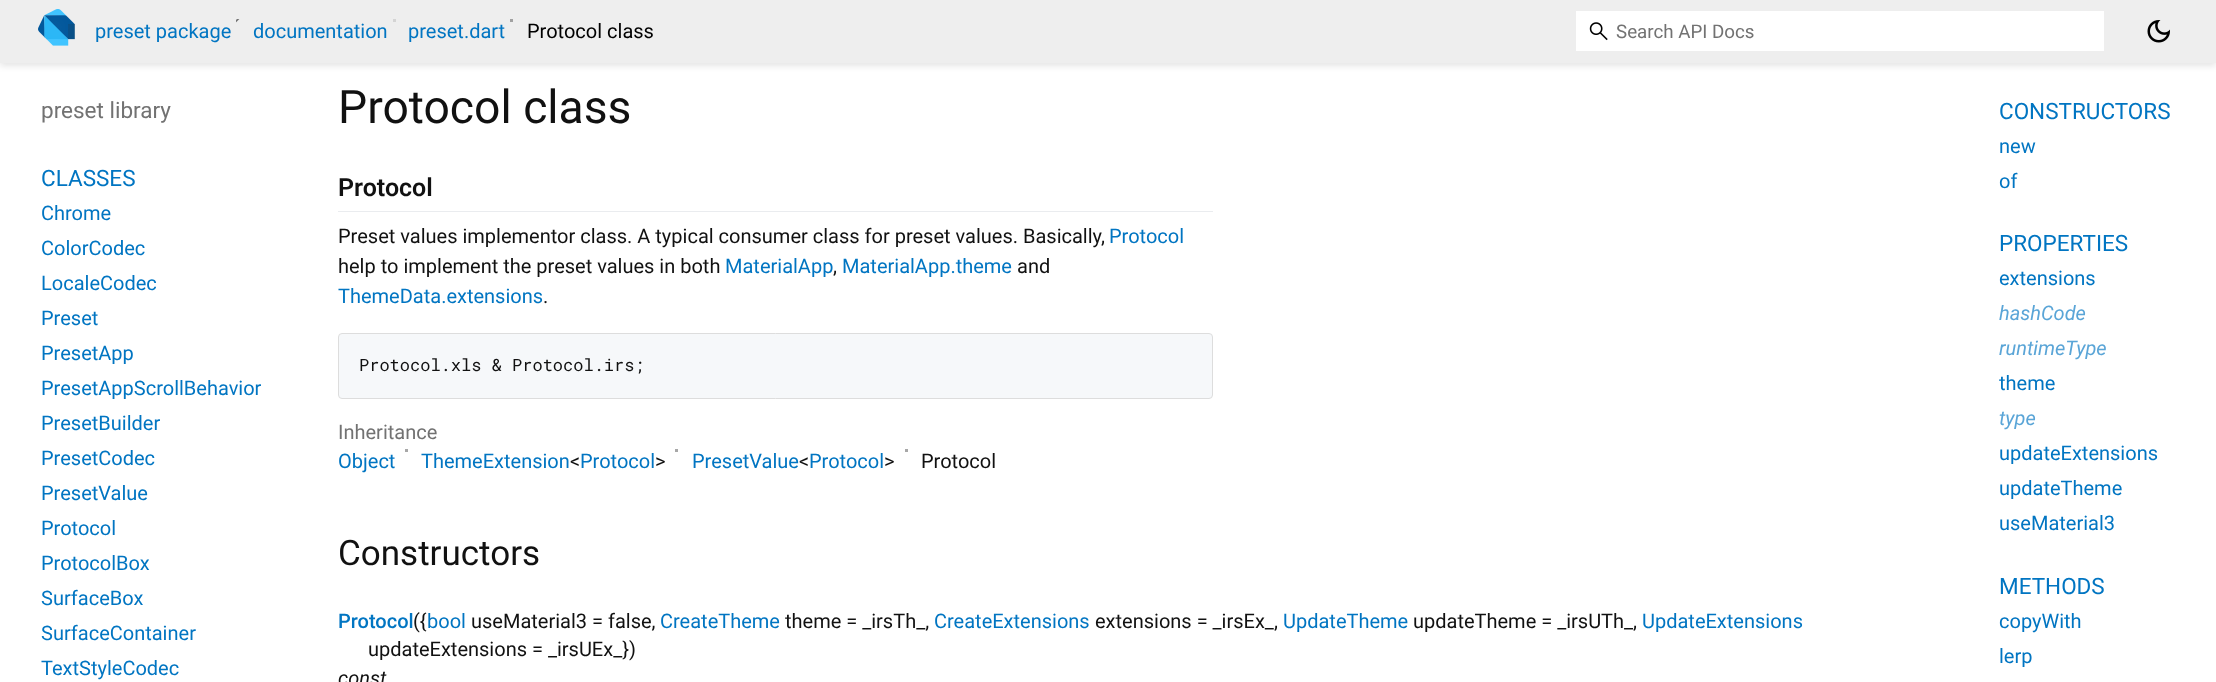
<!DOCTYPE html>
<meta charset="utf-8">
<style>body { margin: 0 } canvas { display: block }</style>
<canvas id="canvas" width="2216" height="682"></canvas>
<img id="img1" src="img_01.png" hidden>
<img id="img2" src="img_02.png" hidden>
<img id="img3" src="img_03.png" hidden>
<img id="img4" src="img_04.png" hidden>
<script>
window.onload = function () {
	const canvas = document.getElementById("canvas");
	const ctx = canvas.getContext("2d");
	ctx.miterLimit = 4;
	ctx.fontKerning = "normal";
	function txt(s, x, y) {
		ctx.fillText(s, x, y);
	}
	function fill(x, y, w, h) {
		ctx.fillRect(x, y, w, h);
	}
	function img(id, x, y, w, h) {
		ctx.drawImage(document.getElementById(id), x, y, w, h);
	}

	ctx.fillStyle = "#FFFFFF";
	fill(0, 0, 2216, 682);
	ctx.fillStyle = "rgba(0, 0, 0, 0.1)";
	ctx.filter = "blur(3px)";
	ctx.beginPath();
	ctx.rect(0, 4, 2216, 62);
	ctx.fill();
	ctx.filter = "none";
	ctx.fillStyle = "#EEEEEE";
	fill(0, 0, 2216, 63);
	img("img1", 38, 9, 37, 37);
	img("img2", 236, 19, 4, 4);
	ctx.fillStyle = "#D4D4D4";
	fill(393, 19, 3, 3);
	ctx.fillStyle = "#A1A1A1";
	fill(510, 19, 3, 3);
	ctx.fillStyle = "#FFFFFF";
	fill(1576, 11, 528, 40);
	img("img3", 1589, 22, 19, 19);
	img("img4", 2147, 20, 23, 23);
	ctx.fillStyle = "#EAECEF";
	fill(338, 211, 875, 1);
	ctx.fillStyle = "#F6F8FA";
	ctx.beginPath();
	ctx.roundRect(338.5, 333.5, 874, 65, 3.5);
	ctx.fill();
	ctx.strokeStyle = "#DDDDDD";
	ctx.stroke();
	ctx.fillStyle = "#A8A8A8";
	fill(405, 449, 3, 3);
	fill(675, 449, 3, 3);
	fill(905, 449, 3, 3);
	ctx.font = "20px Roboto";
	ctx.fillStyle = "#0175C2";
	txt("preset package", 95, 38);
	txt("documentation", 253, 38);
	txt("preset.dart", 408, 38);
	ctx.fillStyle = "#000000";
	txt("Protocol class", 527, 38);
	ctx.font = "18.75px Roboto";
	ctx.fillStyle = "#727272";
	txt("Search API Docs", 1616, 38);
	ctx.font = "22.5px Roboto";
	txt("preset library", 41, 118);
	ctx.fillStyle = "#0175C2";
	txt("CLASSES", 41, 186);
	ctx.font = "20px Roboto";
	txt("Chrome", 41, 220);
	txt("ColorCodec", 41, 255);
	txt("LocaleCodec", 41, 290);
	txt("Preset", 41, 325);
	txt("PresetApp", 41, 360);
	txt("PresetAppScrollBehavior", 41, 395);
	txt("PresetBuilder", 41, 430);
	txt("PresetCodec", 41, 465);
	txt("PresetValue", 41, 500);
	txt("Protocol", 41, 535);
	txt("ProtocolBox", 41, 570);
	txt("SurfaceBox", 41, 605);
	txt("SurfaceContainer", 41, 640);
	txt("TextStyleCodec", 41, 675);
	ctx.font = "46.25px Roboto";
	ctx.fillStyle = "#111111";
	txt("Protocol class", 338, 123);
	ctx.font = "600 25px Roboto";
	txt("Protocol", 338, 196);
	ctx.font = "20px Roboto";
	txt("Preset values implementor class. A typical consumer class for preset values. Basically,", 338, 243);
	ctx.fillStyle = "#0175C2";
	txt("Protocol", 1109, 243);
	ctx.fillStyle = "#111111";
	txt("help to implement the preset values in both", 338, 273);
	ctx.fillStyle = "#0175C2";
	txt("MaterialApp", 725, 273);
	ctx.fillStyle = "#111111";
	txt(",", 833, 273);
	ctx.fillStyle = "#0175C2";
	txt("MaterialApp.theme", 842, 273);
	ctx.fillStyle = "#111111";
	txt("and", 1017, 273);
	ctx.fillStyle = "#0175C2";
	txt("ThemeData.extensions", 338, 303);
	ctx.fillStyle = "#111111";
	txt(".", 543, 303);
	ctx.font = "17px Roboto Mono";
	txt("Protocol.xls & Protocol.irs;", 359, 371);
	ctx.font = "20px Roboto";
	ctx.fillStyle = "#727272";
	txt("Inheritance", 338, 439);
	ctx.fillStyle = "#0175C2";
	txt("Object", 338, 468);
	txt("ThemeExtension", 421, 468);
	ctx.fillStyle = "#111111";
	txt("<", 570, 468);
	ctx.fillStyle = "#0175C2";
	txt("Protocol", 580, 468);
	ctx.fillStyle = "#111111";
	txt(">", 655, 468);
	ctx.fillStyle = "#0175C2";
	txt("PresetValue", 692, 468);
	ctx.fillStyle = "#111111";
	txt("<", 799, 468);
	ctx.fillStyle = "#0175C2";
	txt("Protocol", 809, 468);
	ctx.fillStyle = "#111111";
	txt(">", 884, 468);
	txt("Protocol", 921, 468);
	ctx.font = "35px Roboto";
	txt("Constructors", 338, 565);
	ctx.font = "500 20px Roboto";
	ctx.fillStyle = "#0175C2";
	txt("Protocol", 338, 628);
	ctx.font = "20px Roboto";
	ctx.fillStyle = "#111111";
	txt("({", 413, 628);
	ctx.fillStyle = "#0175C2";
	txt("bool", 427, 628);
	ctx.fillStyle = "#111111";
	txt("useMaterial3 = false,", 471, 628);
	ctx.fillStyle = "#0175C2";
	txt("CreateTheme", 660, 628);
	ctx.fillStyle = "#111111";
	txt("theme = _irsTh_,", 785, 628);
	ctx.fillStyle = "#0175C2";
	txt("CreateExtensions", 934, 628);
	ctx.fillStyle = "#111111";
	txt("extensions = _irsEx_,", 1095, 628);
	ctx.fillStyle = "#0175C2";
	txt("UpdateTheme", 1283, 628);
	ctx.fillStyle = "#111111";
	txt("updateTheme = _irsUTh_,", 1413, 628);
	ctx.fillStyle = "#0175C2";
	txt("UpdateExtensions", 1642, 628);
	ctx.fillStyle = "#111111";
	txt("updateExtensions = _irsUEx_})", 368, 656);
	ctx.font = "italic 20px Roboto";
	txt("const", 338, 685);
	ctx.font = "22.5px Roboto";
	ctx.fillStyle = "#0175C2";
	txt("CONSTRUCTORS", 1999, 119);
	ctx.font = "20px Roboto";
	txt("new", 1999, 153);
	txt("of", 1999, 188);
	ctx.font = "22.5px Roboto";
	txt("PROPERTIES", 1999, 251);
	ctx.font = "20px Roboto";
	txt("extensions", 1999, 285);
	ctx.font = "italic 20px Roboto";
	ctx.fillStyle = "#5AA5D7";
	txt("hashCode", 1999, 320);
	txt("runtimeType", 1999, 355);
	ctx.font = "20px Roboto";
	ctx.fillStyle = "#0175C2";
	txt("theme", 1999, 390);
	ctx.font = "italic 20px Roboto";
	ctx.fillStyle = "#5AA5D7";
	txt("type", 1999, 425);
	ctx.font = "20px Roboto";
	ctx.fillStyle = "#0175C2";
	txt("updateExtensions", 1999, 460);
	txt("updateTheme", 1999, 495);
	txt("useMaterial3", 1999, 530);
	ctx.font = "22.5px Roboto";
	txt("METHODS", 1999, 594);
	ctx.font = "20px Roboto";
	txt("copyWith", 1999, 628);
	txt("lerp", 1999, 663);
};
</script>
